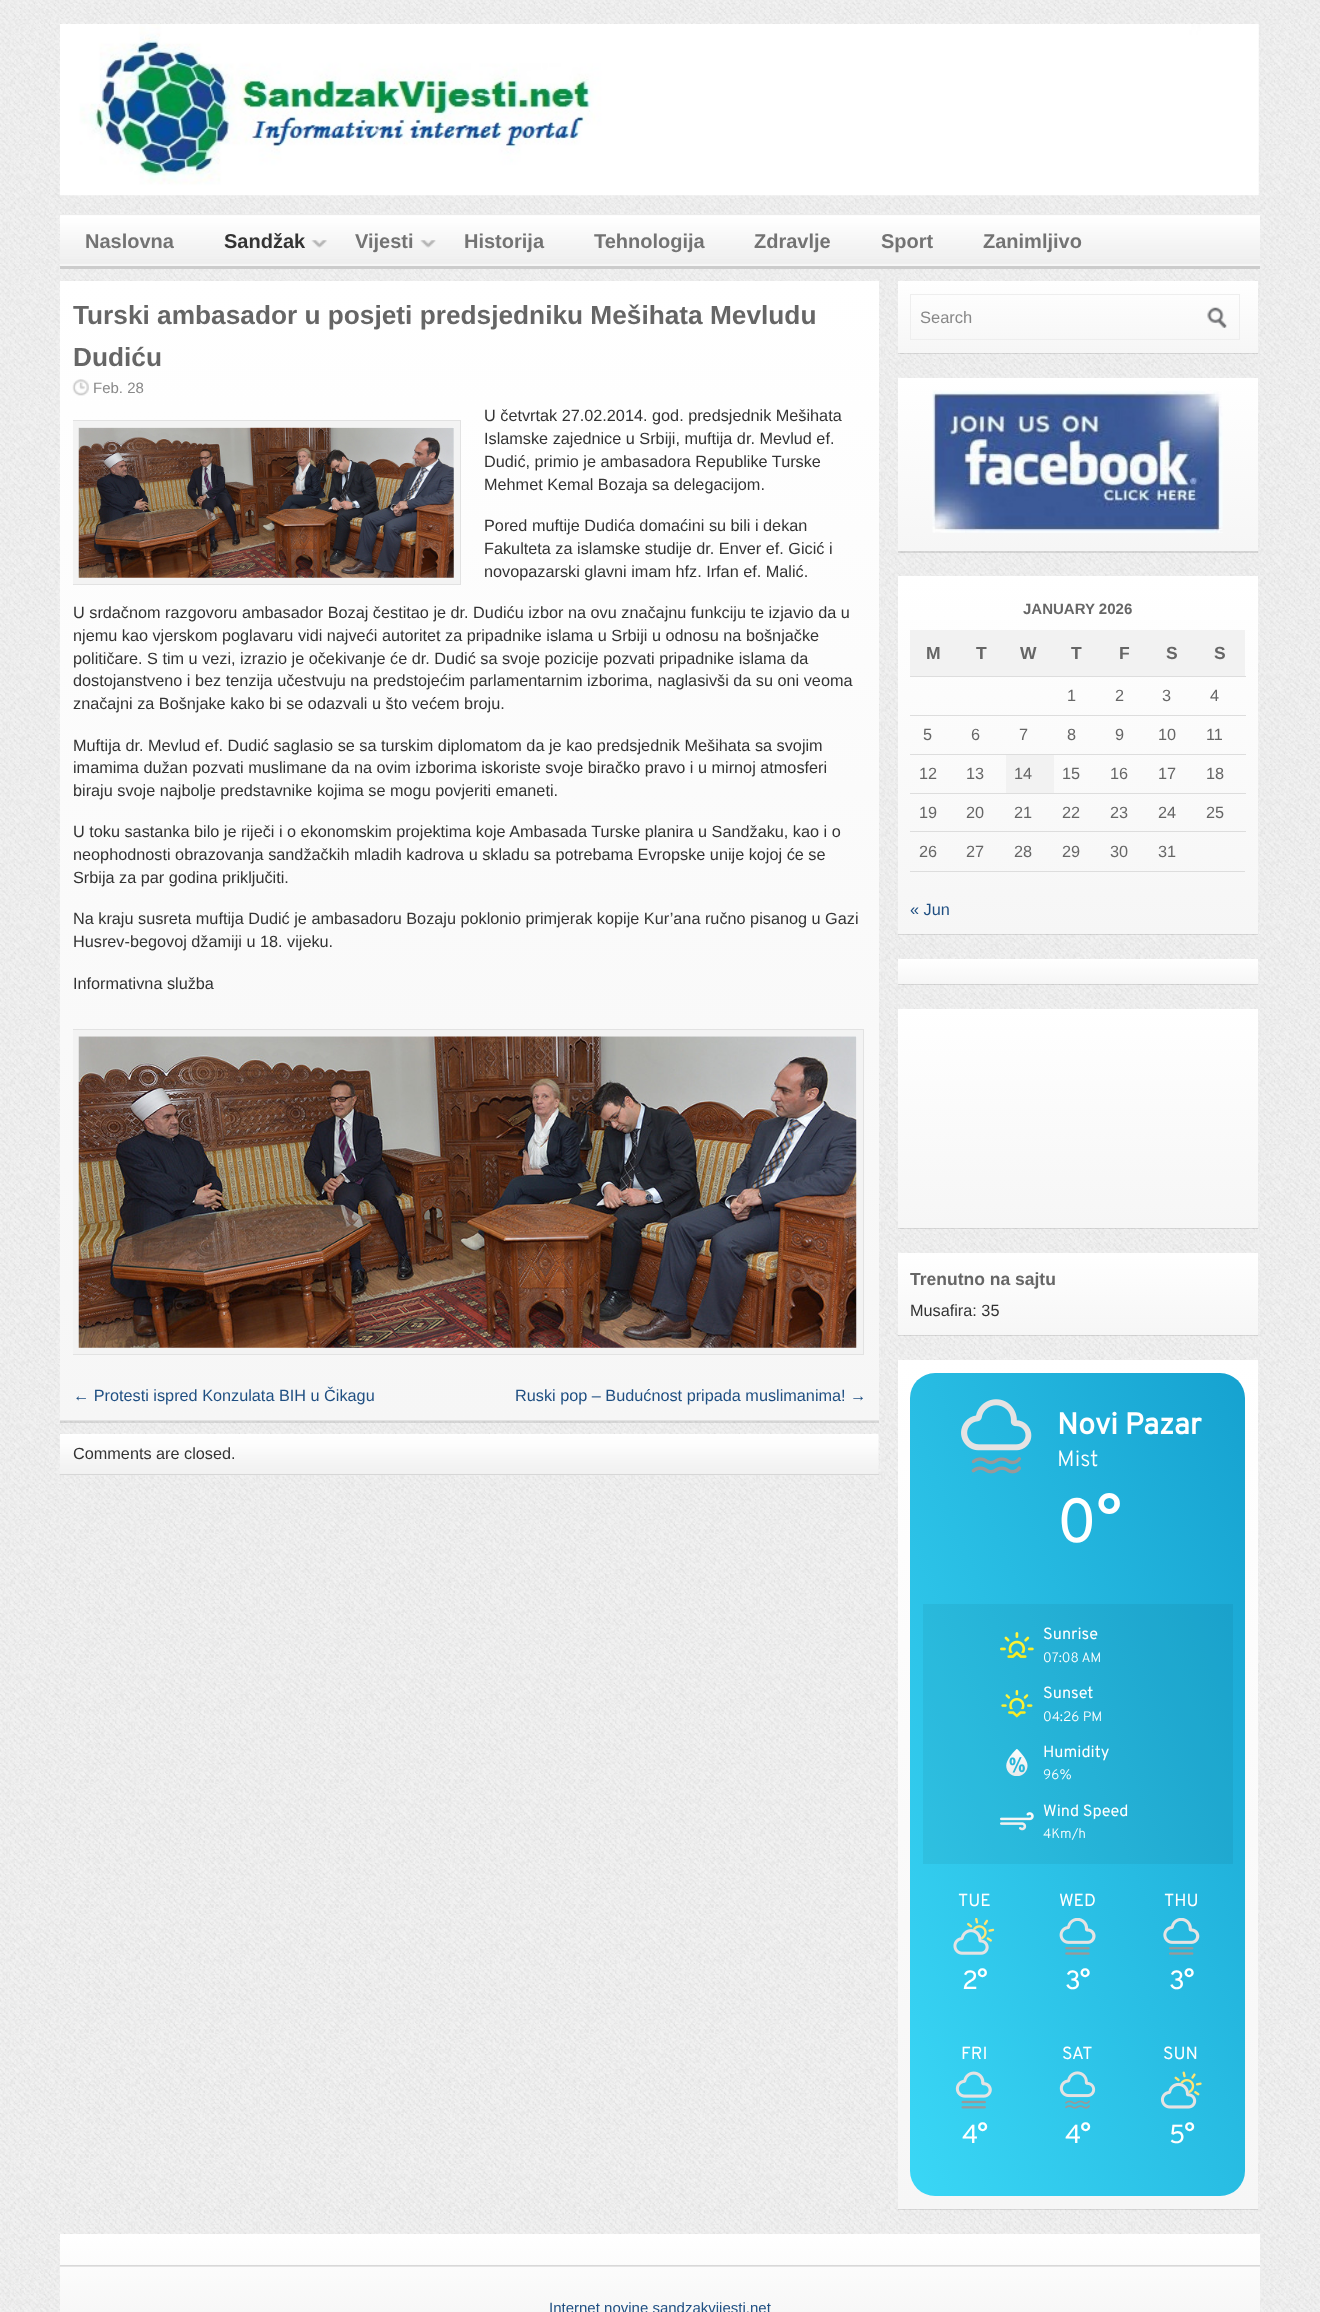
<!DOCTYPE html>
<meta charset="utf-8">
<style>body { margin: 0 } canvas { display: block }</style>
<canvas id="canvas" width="1320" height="2312"></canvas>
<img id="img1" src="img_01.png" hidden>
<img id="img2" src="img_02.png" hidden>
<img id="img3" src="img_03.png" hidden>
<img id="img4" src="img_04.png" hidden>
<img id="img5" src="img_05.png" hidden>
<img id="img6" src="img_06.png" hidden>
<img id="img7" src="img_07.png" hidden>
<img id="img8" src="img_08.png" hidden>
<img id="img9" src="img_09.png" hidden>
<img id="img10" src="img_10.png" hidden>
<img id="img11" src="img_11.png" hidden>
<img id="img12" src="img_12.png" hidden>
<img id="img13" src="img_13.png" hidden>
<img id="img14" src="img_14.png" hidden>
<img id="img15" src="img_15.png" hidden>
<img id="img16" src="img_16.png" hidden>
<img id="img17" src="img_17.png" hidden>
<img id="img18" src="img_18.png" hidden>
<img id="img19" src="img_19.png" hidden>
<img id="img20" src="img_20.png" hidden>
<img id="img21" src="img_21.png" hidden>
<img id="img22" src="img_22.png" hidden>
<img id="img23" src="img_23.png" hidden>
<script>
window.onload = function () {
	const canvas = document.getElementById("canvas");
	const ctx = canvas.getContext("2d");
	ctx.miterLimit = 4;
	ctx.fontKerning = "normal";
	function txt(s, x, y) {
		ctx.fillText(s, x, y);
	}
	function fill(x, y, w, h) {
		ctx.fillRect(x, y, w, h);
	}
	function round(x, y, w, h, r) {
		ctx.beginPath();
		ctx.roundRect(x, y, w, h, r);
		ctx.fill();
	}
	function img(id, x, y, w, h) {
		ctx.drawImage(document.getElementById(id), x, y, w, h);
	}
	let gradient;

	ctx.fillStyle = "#FFFFFF";
	fill(0, 0, 1320, 2312);
	img("img1", 0, 0, 1320, 2312);
	img("img2", 60, 24, 1199, 172);
	ctx.fillStyle = "#F6F6F6";
	fill(60, 215, 1200, 51);
	img("img3", 60, 215, 1200, 49);
	ctx.fillStyle = "#ECECEC";
	fill(60, 214, 1200, 1);
	ctx.fillStyle = "#CCCCCC";
	fill(60, 266, 1200, 3);
	img("img4", 311, 240, 16, 8);
	img("img5", 420, 240, 16, 8);
	ctx.fillStyle = "rgba(0, 0, 0, 0.1)";
	ctx.filter = "blur(0.5px)";
	ctx.beginPath();
	ctx.rect(60, 283, 819, 1140);
	ctx.fill();
	ctx.filter = "none";
	gradient = ctx.createLinearGradient(469, 281, 469, 1420);
	gradient.addColorStop(0, "#FFFFFF");
	gradient.addColorStop(1, "#F6F6F6");
	ctx.fillStyle = gradient;
	fill(60, 281, 819, 1139);
	ctx.fillStyle = "#E3E3E3";
	fill(60, 1420, 819, 1);
	img("img6", 72, 379, 17, 17);
	ctx.strokeStyle = "#F3F3F3";
	ctx.lineWidth = 6;
	ctx.strokeRect(76, 424, 381, 157);
	img("img7", 78, 427, 376, 151);
	ctx.save();
	ctx.beginPath();
	ctx.rect(73, 405, 793, 965);
	ctx.clip();
	ctx.strokeStyle = "#E2E2E2";
	ctx.lineWidth = 1;
	ctx.strokeRect(71.5, 420.5, 389, 164);
	ctx.restore();
	ctx.strokeRect(76, 1033, 784, 318);
	img("img8", 78, 1036, 779, 312);
	ctx.save();
	ctx.beginPath();
	ctx.rect(73, 405, 793, 965);
	ctx.clip();
	ctx.strokeStyle = "#E2E2E2";
	ctx.lineWidth = 1;
	ctx.strokeRect(71.5, 1029.5, 792, 325);
	ctx.restore();
	img("img9", 60, 1434, 819, 40);
	ctx.fillStyle = "#D7D7D7";
	fill(60, 1474, 819, 1);
	ctx.fillStyle = "rgba(0, 0, 0, 0.1)";
	ctx.filter = "blur(0.5px)";
	ctx.beginPath();
	ctx.rect(898, 283, 360, 71);
	ctx.fill();
	ctx.filter = "none";
	gradient = ctx.createLinearGradient(1078, 281, 1078, 353);
	gradient.addColorStop(0, "#FFFFFF");
	gradient.addColorStop(1, "#F6F6F6");
	ctx.fillStyle = gradient;
	fill(898, 281, 360, 72);
	img("img10", 1207, 307, 20, 21);
	ctx.strokeStyle = "#EEEEEE";
	ctx.lineWidth = 1;
	ctx.strokeRect(910.5, 294.5, 329, 45);
	ctx.fillStyle = "rgba(0, 0, 0, 0.1)";
	ctx.filter = "blur(0.5px)";
	ctx.beginPath();
	ctx.rect(898, 379, 360, 174);
	ctx.fill();
	ctx.filter = "none";
	gradient = ctx.createLinearGradient(1078, 378, 1078, 551);
	gradient.addColorStop(0, "#FFFFFF");
	gradient.addColorStop(1, "#F6F6F6");
	ctx.fillStyle = gradient;
	fill(898, 378, 360, 173);
	img("img11", 932, 390, 291, 143);
	ctx.fillStyle = "rgba(0, 0, 0, 0.1)";
	ctx.filter = "blur(0.5px)";
	ctx.beginPath();
	ctx.rect(898, 578, 360, 357);
	ctx.fill();
	ctx.filter = "none";
	gradient = ctx.createLinearGradient(1078, 576, 1078, 934);
	gradient.addColorStop(0, "#FFFFFF");
	gradient.addColorStop(1, "#F6F6F6");
	ctx.fillStyle = gradient;
	fill(898, 576, 360, 358);
	ctx.fillStyle = "#DDDDDD";
	fill(910, 871, 335, 1);
	ctx.fillStyle = "#F2F2F2";
	fill(910, 630, 335, 46);
	ctx.fillStyle = "#DDDDDD";
	fill(910, 676, 336, 1);
	fill(910, 715, 336, 1);
	ctx.fillStyle = "#F2F2F2";
	fill(1006, 755, 48, 38);
	ctx.fillStyle = "#DDDDDD";
	fill(910, 754, 336, 1);
	fill(910, 793, 336, 1);
	fill(910, 831, 336, 1);
	ctx.fillStyle = "rgba(0, 0, 0, 0.1)";
	ctx.filter = "blur(0.5px)";
	ctx.beginPath();
	ctx.rect(898, 960, 360, 25);
	ctx.fill();
	ctx.filter = "none";
	gradient = ctx.createLinearGradient(1078, 959, 1078, 984);
	gradient.addColorStop(0, "#FFFFFF");
	gradient.addColorStop(1, "#F6F6F6");
	ctx.fillStyle = gradient;
	fill(898, 959, 360, 25);
	ctx.fillStyle = "rgba(0, 0, 0, 0.1)";
	ctx.filter = "blur(0.5px)";
	ctx.beginPath();
	ctx.rect(898, 1010, 360, 219);
	ctx.fill();
	ctx.filter = "none";
	gradient = ctx.createLinearGradient(1078, 1009, 1078, 1228);
	gradient.addColorStop(0, "#FFFFFF");
	gradient.addColorStop(1, "#F6F6F6");
	ctx.fillStyle = gradient;
	fill(898, 1009, 360, 219);
	ctx.fillStyle = "rgba(0, 0, 0, 0.1)";
	ctx.filter = "blur(0.5px)";
	ctx.beginPath();
	ctx.rect(898, 1254, 360, 82);
	ctx.fill();
	ctx.filter = "none";
	gradient = ctx.createLinearGradient(1078, 1253, 1078, 1335);
	gradient.addColorStop(0, "#FFFFFF");
	gradient.addColorStop(1, "#F6F6F6");
	ctx.fillStyle = gradient;
	fill(898, 1253, 360, 82);
	ctx.fillStyle = "rgba(0, 0, 0, 0.1)";
	ctx.filter = "blur(0.5px)";
	ctx.beginPath();
	ctx.rect(898, 1361, 360, 849);
	ctx.fill();
	ctx.filter = "none";
	gradient = ctx.createLinearGradient(1078, 1360, 1078, 2209);
	gradient.addColorStop(0, "#FFFFFF");
	gradient.addColorStop(1, "#F6F6F6");
	ctx.fillStyle = gradient;
	fill(898, 1360, 360, 849);
	gradient = ctx.createLinearGradient(790, 1901, 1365, 1667);
	gradient.addColorStop(0, "#3AD7F6");
	gradient.addColorStop(1, "#16A2D0");
	ctx.fillStyle = gradient;
	round(910, 1373, 335, 823, 25);
	img("img12", 961, 1399, 71, 75);
	ctx.fillStyle = "rgba(0, 0, 0, 0.05)";
	fill(923, 1604, 310, 260);
	img("img13", 1000, 1632, 34, 26);
	img("img14", 1001, 1690, 32, 28);
	img("img15", 1006, 1749, 22, 27);
	img("img16", 1000, 1812, 34, 19);
	img("img17", 953, 1918, 42, 37);
	img("img18", 1059, 1918, 37, 37);
	img("img19", 1163, 1918, 37, 37);
	img("img20", 955, 2071, 37, 38);
	img("img21", 1059, 2071, 37, 38);
	img("img22", 1160, 2071, 42, 38);
	gradient = ctx.createLinearGradient(660, 2234, 660, 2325);
	gradient.addColorStop(0, "#FFFFFF");
	gradient.addColorStop(1, "#F6F6F6");
	ctx.fillStyle = gradient;
	fill(60, 2234, 1200, 78);
	img("img23", 60, 2265, 1200, 2);
	ctx.font = "bold 20px Liberation Sans";
	ctx.fillStyle = "#737373";
	txt("Naslovna", 85, 248);
	ctx.fillStyle = "#333333";
	txt("Sandžak", 224, 248);
	ctx.fillStyle = "#737373";
	txt("Vijesti", 355, 248);
	txt("Historija", 464, 248);
	txt("Tehnologija", 594, 248);
	txt("Zdravlje", 754, 248);
	txt("Sport", 881, 248);
	txt("Zanimljivo", 983, 248);
	ctx.font = "bold 26.25px Liberation Sans";
	ctx.fillStyle = "#666666";
	txt("Turski ambasador u posjeti predsjedniku Mešihata Mevludu", 73, 324);
	txt("Dudiću", 73, 366);
	ctx.font = "15px Liberation Sans";
	ctx.fillStyle = "#888888";
	txt("Feb. 28", 93, 393);
	ctx.font = "16.25px Liberation Sans";
	ctx.fillStyle = "#333333";
	txt("U četvrtak 27.02.2014. god. predsjednik Mešihata", 484, 421);
	txt("Islamske zajednice u Srbiji, muftija dr. Mevlud ef.", 484, 444);
	txt("Dudić, primio je ambasadora Republike Turske", 484, 467);
	txt("Mehmet Kemal Bozaja sa delegacijom.", 484, 490);
	txt("Pored muftije Dudića domaćini su bili i dekan", 484, 531);
	txt("Fakulteta za islamske studije dr. Enver ef. Gicić i", 484, 554);
	txt("novopazarski glavni imam hfz. Irfan ef. Malić.", 484, 577);
	txt("U srdačnom razgovoru ambasador Bozaj čestitao je dr. Dudiću izbor na ovu značajnu funkciju te izjavio da u", 73, 618);
	txt("njemu kao vjerskom poglavaru vidi najveći autoritet za pripadnike islama u Srbiji u odnosu na bošnjačke", 73, 641);
	txt("političare. S tim u vezi, izrazio je očekivanje će dr. Dudić sa svoje pozicije pozvati pripadnike islama da", 73, 664);
	txt("dostojanstveno i bez tenzija učestvuju na predstojećim parlamentarnim izborima, naglasivši da su oni veoma", 73, 686);
	txt("značajni za Bošnjake kako bi se odazvali u što većem broju.", 73, 709);
	txt("Muftija dr. Mevlud ef. Dudić saglasio se sa turskim diplomatom da je kao predsjednik Mešihata sa svojim", 73, 751);
	txt("imamima dužan pozvati muslimane da na ovim izborima iskoriste svoje biračko pravo i u mirnoj atmosferi", 73, 773);
	txt("biraju svoje najbolje predstavnike kojima se mogu povjeriti emaneti.", 73, 796);
	txt("U toku sastanka bilo je riječi i o ekonomskim projektima koje Ambasada Turske planira u Sandžaku, kao i o", 73, 837);
	txt("neophodnosti obrazovanja sandžačkih mladih kadrova u skladu sa potrebama Evropske unije kojoj će se", 73, 860);
	txt("Srbija za par godina priključiti.", 73, 883);
	txt("Na kraju susreta muftija Dudić je ambasadoru Bozaju poklonio primjerak kopije Kur’ana ručno pisanog u Gazi", 73, 924);
	txt("Husrev-begovoj džamiji u 18. vijeku.", 73, 947);
	txt("Informativna služba", 73, 989);
	ctx.fillStyle = "#1F4F82";
	txt("← Protesti ispred Konzulata BIH u Čikagu", 73, 1401);
	txt("Ruski pop – Budućnost pripada muslimanima! →", 515, 1401);
	ctx.fillStyle = "#333333";
	txt("Comments are closed.", 73, 1459);
	ctx.font = "16.5px Liberation Sans";
	ctx.fillStyle = "#888888";
	txt("Search", 920, 323);
	ctx.font = "bold 15px Liberation Sans";
	ctx.fillStyle = "#666666";
	txt("JANUARY 2026", 1023, 614);
	ctx.letterSpacing = "2px";
	ctx.font = "bold 17.5px Liberation Sans";
	txt("M", 926, 659);
	txt("T", 976, 659);
	txt("W", 1020, 659);
	txt("T", 1071, 659);
	txt("F", 1119, 659);
	txt("S", 1166, 659);
	txt("S", 1214, 659);
	ctx.letterSpacing = "0px";
	ctx.font = "16.25px Liberation Sans";
	txt("1", 1067, 701);
	txt("2", 1115, 701);
	txt("3", 1162, 701);
	txt("4", 1210, 701);
	txt("5", 923, 740);
	txt("6", 971, 740);
	txt("7", 1019, 740);
	txt("8", 1067, 740);
	txt("9", 1115, 740);
	txt("10", 1158, 740);
	txt("11", 1206, 740);
	txt("12", 919, 779);
	txt("13", 966, 779);
	txt("14", 1014, 779);
	txt("15", 1062, 779);
	txt("16", 1110, 779);
	txt("17", 1158, 779);
	txt("18", 1206, 779);
	txt("19", 919, 818);
	txt("20", 966, 818);
	txt("21", 1014, 818);
	txt("22", 1062, 818);
	txt("23", 1110, 818);
	txt("24", 1158, 818);
	txt("25", 1206, 818);
	txt("26", 919, 857);
	txt("27", 966, 857);
	txt("28", 1014, 857);
	txt("29", 1062, 857);
	txt("30", 1110, 857);
	txt("31", 1158, 857);
	ctx.fillStyle = "#1F4F82";
	txt("« Jun", 910, 915);
	ctx.font = "bold 17.5px Liberation Sans";
	ctx.fillStyle = "#666666";
	txt("Trenutno na sajtu", 910, 1285);
	ctx.font = "16.25px Liberation Sans";
	ctx.fillStyle = "#333333";
	txt("Musafira: 35", 910, 1316);
	ctx.font = "bold 30px Overpass";
	ctx.fillStyle = "#FFFFFF";
	txt("Novi Pazar", 1057, 1434);
	ctx.font = "300 22px Overpass";
	txt("Mist", 1057, 1466);
	ctx.font = "62px Overpass";
	txt("0°", 1057, 1542);
	ctx.font = "16.25px Overpass";
	txt("Sunrise", 1043, 1639);
	ctx.font = "300 13.75px Overpass";
	txt("07:08 AM", 1043, 1662);
	ctx.font = "16.25px Overpass";
	txt("Sunset", 1043, 1698);
	ctx.font = "300 13.75px Overpass";
	txt("04:26 PM", 1043, 1721);
	ctx.font = "16.25px Overpass";
	txt("Humidity", 1043, 1757);
	ctx.font = "300 13.75px Overpass";
	txt("96%", 1043, 1779);
	ctx.font = "16.25px Overpass";
	txt("Wind Speed", 1043, 1816);
	ctx.font = "300 13.75px Overpass";
	txt("4Km/h", 1043, 1838);
	ctx.font = "17.5px Overpass";
	txt("TUE", 958, 1906);
	ctx.letterSpacing = "-1px";
	ctx.font = "26.25px Overpass";
	txt("2°", 962, 1989);
	ctx.letterSpacing = "0px";
	ctx.font = "17.5px Overpass";
	txt("WED", 1059, 1906);
	ctx.letterSpacing = "-1px";
	ctx.font = "26.25px Overpass";
	txt("3°", 1065, 1989);
	ctx.letterSpacing = "0px";
	ctx.font = "17.5px Overpass";
	txt("THU", 1164, 1906);
	ctx.letterSpacing = "-1px";
	ctx.font = "26.25px Overpass";
	txt("3°", 1169, 1989);
	ctx.letterSpacing = "0px";
	ctx.font = "17.5px Overpass";
	txt("FRI", 961, 2059);
	ctx.letterSpacing = "-1px";
	ctx.font = "26.25px Overpass";
	txt("4°", 962, 2143);
	ctx.letterSpacing = "0px";
	ctx.font = "17.5px Overpass";
	txt("SAT", 1062, 2059);
	ctx.letterSpacing = "-1px";
	ctx.font = "26.25px Overpass";
	txt("4°", 1065, 2143);
	ctx.letterSpacing = "0px";
	ctx.font = "17.5px Overpass";
	txt("SUN", 1163, 2059);
	ctx.letterSpacing = "-1px";
	ctx.font = "26.25px Overpass";
	txt("5°", 1169, 2143);
	ctx.letterSpacing = "0px";
	ctx.font = "15px Liberation Sans";
	ctx.fillStyle = "#1F4F82";
	txt("Internet novine sandzakvijesti.net", 549, 2313);
};
</script>
